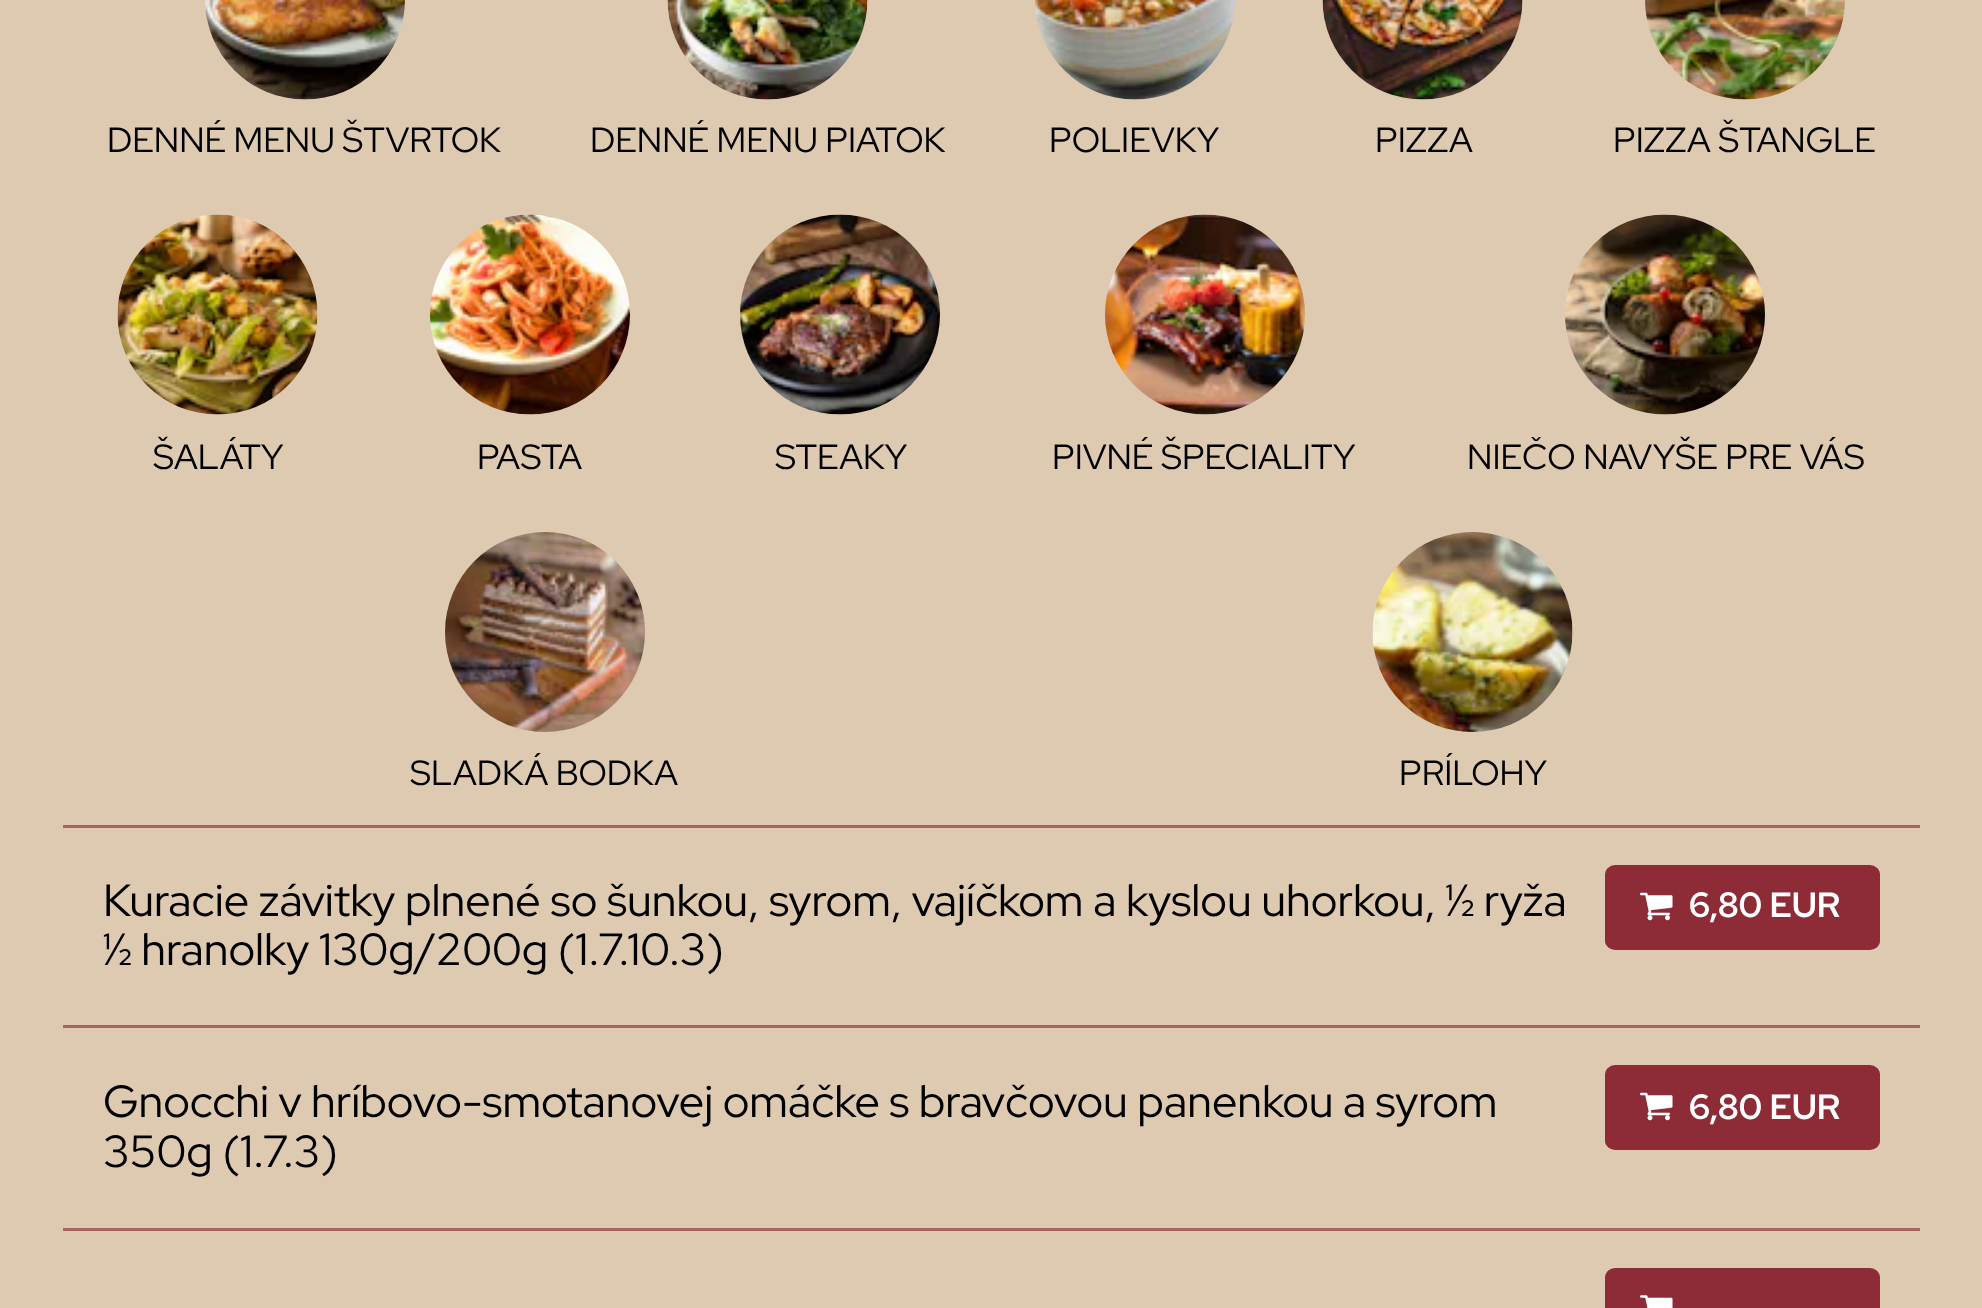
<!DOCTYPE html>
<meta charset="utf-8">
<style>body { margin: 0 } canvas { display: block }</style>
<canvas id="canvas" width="1982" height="1308"></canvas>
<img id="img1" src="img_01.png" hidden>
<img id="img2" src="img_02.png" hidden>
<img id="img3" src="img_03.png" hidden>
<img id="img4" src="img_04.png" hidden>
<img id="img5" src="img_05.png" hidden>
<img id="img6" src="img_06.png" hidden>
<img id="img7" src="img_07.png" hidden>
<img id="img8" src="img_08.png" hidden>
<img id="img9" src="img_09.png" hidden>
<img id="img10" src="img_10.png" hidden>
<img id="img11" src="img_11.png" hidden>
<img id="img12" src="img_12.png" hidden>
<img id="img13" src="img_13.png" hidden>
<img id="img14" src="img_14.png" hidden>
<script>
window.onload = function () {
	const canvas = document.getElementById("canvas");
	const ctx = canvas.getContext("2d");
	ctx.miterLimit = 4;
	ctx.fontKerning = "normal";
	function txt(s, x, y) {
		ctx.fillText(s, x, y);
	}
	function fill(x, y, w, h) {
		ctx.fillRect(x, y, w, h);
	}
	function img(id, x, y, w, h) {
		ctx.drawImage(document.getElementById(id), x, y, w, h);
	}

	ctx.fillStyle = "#DDCAB1";
	fill(0, 0, 1982, 1308);
	img("img1", 205, 0, 200, 100);
	img("img2", 667, 0, 201, 100);
	img("img3", 1035, 0, 200, 100);
	img("img4", 1322, 0, 201, 100);
	img("img5", 1645, 0, 200, 100);
	img("img6", 117, 214, 201, 201);
	img("img7", 430, 214, 200, 201);
	img("img8", 740, 214, 200, 201);
	img("img9", 1105, 214, 200, 201);
	img("img10", 1565, 214, 200, 201);
	img("img11", 445, 532, 200, 200);
	img("img12", 1372, 532, 201, 200);
	ctx.fillStyle = "#A86260";
	fill(63, 825, 1857, 3);
	ctx.save();
	ctx.beginPath();
	ctx.roundRect(1605, 865, 275, 85, 10);
	ctx.clip();
	ctx.fillStyle = "#8D2B37";
	fill(1605, 868, 275, 80);
	ctx.restore();
	ctx.beginPath();
	ctx.roundRect(1606.5, 866.5, 272, 82, 8.5);
	ctx.strokeStyle = "#8D2B37";
	ctx.lineWidth = 3;
	ctx.stroke();
	img("img13", 1640, 892, 33, 29);
	fill(63, 1025, 1857, 3);
	ctx.save();
	ctx.beginPath();
	ctx.roundRect(1605, 1065, 275, 85, 10);
	ctx.clip();
	ctx.fillStyle = "#8D2B37";
	fill(1605, 1068, 275, 80);
	ctx.restore();
	ctx.beginPath();
	ctx.roundRect(1606.5, 1066.5, 272, 82, 8.5);
	ctx.stroke();
	img("img13", 1640, 1092, 33, 29);
	fill(63, 1228, 1857, 3);
	ctx.save();
	ctx.beginPath();
	ctx.roundRect(1605, 1268, 275, 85, 10);
	ctx.clip();
	ctx.fillStyle = "#8D2B37";
	fill(1605, 1270, 275, 38);
	ctx.restore();
	ctx.beginPath();
	ctx.roundRect(1606.5, 1269.5, 272, 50, 8.5);
	ctx.stroke();
	img("img14", 1640, 1295, 33, 13);
	ctx.font = "35px Red Hat Display";
	ctx.fillStyle = "#000000";
	txt("DENNÉ MENU ŠTVRTOK", 107, 152);
	txt("DENNÉ MENU PIATOK", 590, 152);
	txt("POLIEVKY", 1049, 152);
	txt("PIZZA", 1375, 152);
	txt("PIZZA ŠTANGLE", 1613, 152);
	txt("ŠALÁTY", 153, 469);
	txt("PASTA", 477, 469);
	txt("STEAKY", 775, 469);
	txt("PIVNÉ ŠPECIALITY", 1052, 469);
	txt("NIEČO NAVYŠE PRE VÁS", 1467, 469);
	txt("SLADKÁ BODKA", 410, 785);
	txt("PRÍLOHY", 1399, 785);
	ctx.font = "45px Red Hat Display";
	txt("Kuracie závitky plnené so šunkou, syrom, vajíčkom a kyslou uhorkou, ½ ryža", 103, 916);
	txt("½ hranolky 130g/200g (1.7.10.3)", 103, 965);
	ctx.font = "bold 35px Red Hat Display";
	ctx.fillStyle = "#FFFFFF";
	txt("6,80 EUR", 1689, 917);
	ctx.wordSpacing = "-0.25px";
	ctx.font = "45px Red Hat Display";
	ctx.fillStyle = "#000000";
	txt("Gnocchi v hríbovo-smotanovej omáčke s bravčovou panenkou a syrom", 103, 1117);
	ctx.wordSpacing = "0px";
	txt("350g (1.7.3)", 103, 1167);
	ctx.font = "bold 35px Red Hat Display";
	ctx.fillStyle = "#FFFFFF";
	txt("6,80 EUR", 1689, 1119);
};
</script>
